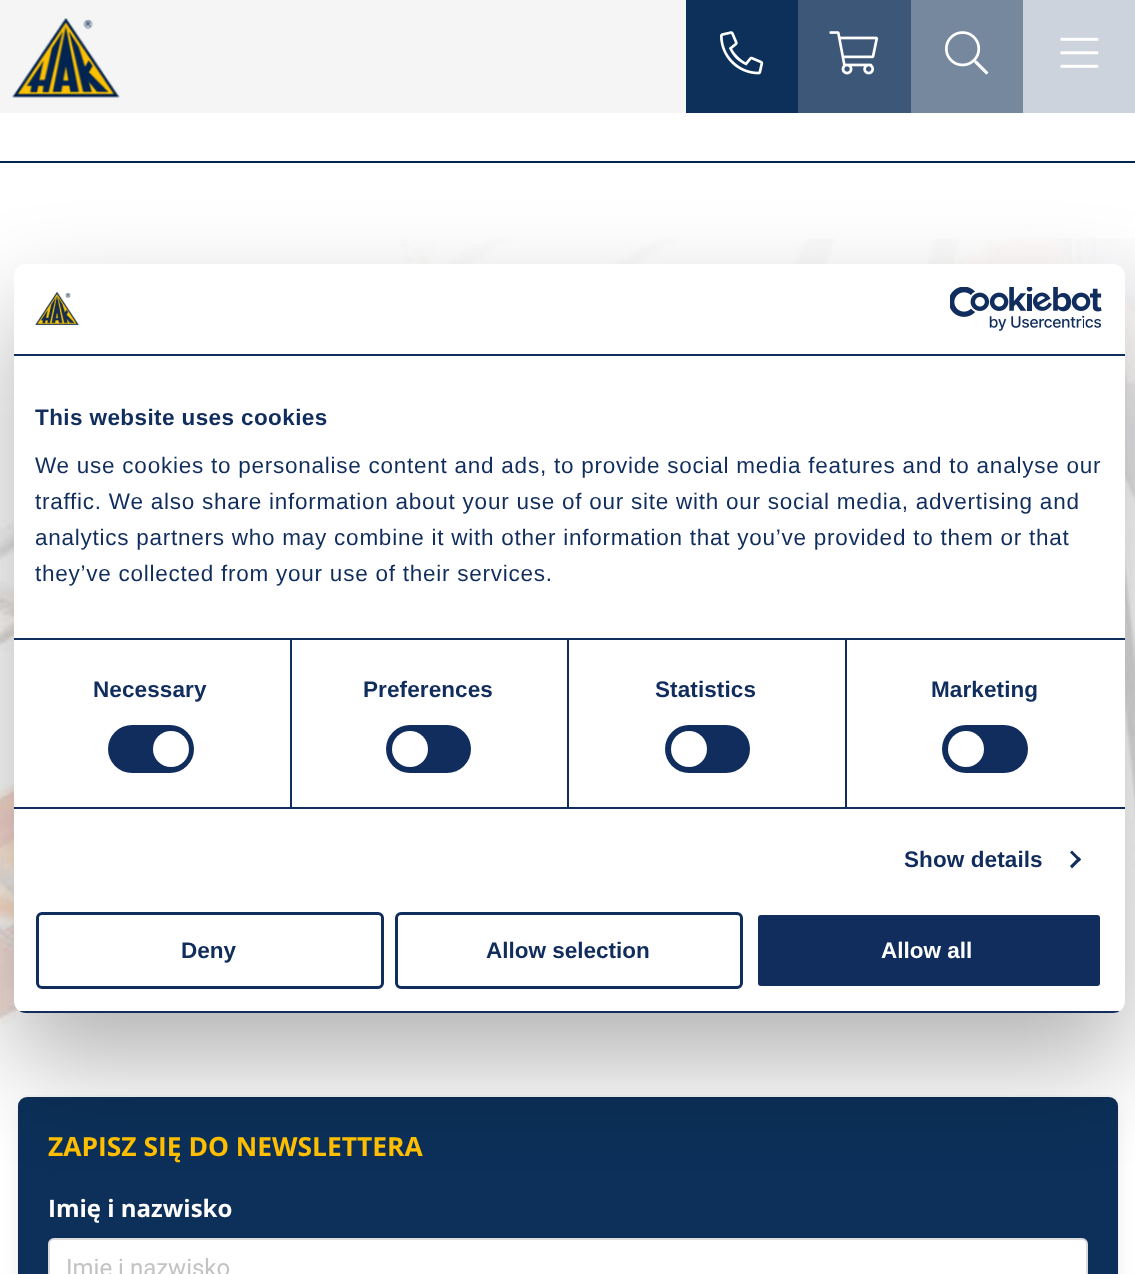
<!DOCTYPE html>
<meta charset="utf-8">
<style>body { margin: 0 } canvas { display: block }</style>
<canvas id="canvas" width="1135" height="1274"></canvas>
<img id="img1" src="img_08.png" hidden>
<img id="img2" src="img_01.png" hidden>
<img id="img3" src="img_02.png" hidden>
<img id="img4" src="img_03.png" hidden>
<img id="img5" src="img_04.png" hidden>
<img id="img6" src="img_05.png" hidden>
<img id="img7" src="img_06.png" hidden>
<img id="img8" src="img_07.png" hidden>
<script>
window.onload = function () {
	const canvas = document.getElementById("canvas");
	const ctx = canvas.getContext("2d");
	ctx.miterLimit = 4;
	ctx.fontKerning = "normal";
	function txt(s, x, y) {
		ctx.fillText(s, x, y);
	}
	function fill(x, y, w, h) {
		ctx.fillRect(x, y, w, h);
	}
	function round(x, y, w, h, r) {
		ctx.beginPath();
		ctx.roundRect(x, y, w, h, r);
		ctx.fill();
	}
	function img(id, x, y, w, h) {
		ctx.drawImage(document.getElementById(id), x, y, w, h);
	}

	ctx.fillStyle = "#FFFFFF";
	fill(0, 0, 1135, 1274);
	img("img1", 0, 238, 1135, 786);
	ctx.fillStyle = "#002551";
	fill(0, 161, 1135, 2);
	ctx.beginPath();
	ctx.roundRect(18, 1096, 1100, 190, 10);
	ctx.strokeStyle = "#FAFAFA";
	ctx.lineWidth = 2;
	ctx.stroke();
	ctx.fillStyle = "rgba(10, 10, 10, 0.1)";
	ctx.filter = "blur(9.5px)";
	ctx.beginPath();
	ctx.roundRect(21, 1109, 1094, 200, 6);
	ctx.fill();
	ctx.filter = "none";
	ctx.fillStyle = "#0C3059";
	round(18, 1097, 1100, 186, 9);
	ctx.fillStyle = "rgba(0, 0, 0, 0.3)";
	ctx.filter = "blur(51px)";
	ctx.beginPath();
	ctx.roundRect(14, 312, 1111, 749, 12);
	ctx.fill();
	ctx.filter = "none";
	ctx.fillStyle = "#FFFFFF";
	round(14, 264, 1111, 749, 12);
	ctx.fillStyle = "#102D5D";
	fill(14, 354, 1111, 2);
	img("img2", 35, 291, 44, 35);
	img("img3", 950, 287, 152, 44);
	fill(290, 639, 2, 168);
	fill(567, 639, 2, 168);
	fill(845, 639, 2, 168);
	fill(14, 638, 1111, 2);
	fill(14, 807, 1111, 2);
	round(108, 725, 86, 48, 24);
	ctx.fillStyle = "#FFFFFF";
	ctx.beginPath();
	ctx.arc(171, 749, 18, 0, Math.PI * 2);
	ctx.fill();
	ctx.fillStyle = "#102D5D";
	round(386, 725, 85, 48, 24);
	ctx.fillStyle = "#FFFFFF";
	ctx.beginPath();
	ctx.arc(410, 749, 18, 0, Math.PI * 2);
	ctx.fill();
	ctx.fillStyle = "#102D5D";
	round(665, 725, 85, 48, 24);
	ctx.fillStyle = "#FFFFFF";
	ctx.beginPath();
	ctx.arc(689, 749, 18, 0, Math.PI * 2);
	ctx.fill();
	ctx.fillStyle = "#102D5D";
	round(942, 725, 86, 48, 24);
	ctx.fillStyle = "#FFFFFF";
	ctx.beginPath();
	ctx.arc(966, 749, 18, 0, Math.PI * 2);
	ctx.fill();
	ctx.fillStyle = "#102D5D";
	ctx.beginPath();
	ctx.moveTo(1072, 850.5);
	ctx.lineTo(1081, 859.5);
	ctx.lineTo(1079, 861.5);
	ctx.lineTo(1070, 852.5);
	ctx.closePath();
	ctx.fill();
	ctx.beginPath();
	ctx.moveTo(1079, 857);
	ctx.lineTo(1081, 859.5);
	ctx.lineTo(1072, 868.5);
	ctx.lineTo(1070, 866);
	ctx.closePath();
	ctx.fill();
	ctx.save();
	ctx.beginPath();
	ctx.roundRect(14, 264, 1111, 749, 12);
	ctx.clip();
	fill(14, 1011, 1111, 2);
	ctx.restore();
	ctx.beginPath();
	ctx.roundRect(37.5, 913.5, 345, 74, 4.5);
	ctx.strokeStyle = "#102D5D";
	ctx.lineWidth = 3;
	ctx.stroke();
	ctx.beginPath();
	ctx.roundRect(396.5, 913.5, 345, 74, 4.5);
	ctx.stroke();
	ctx.beginPath();
	ctx.roundRect(756.5, 913.5, 345, 74, 4.5);
	ctx.fill();
	ctx.strokeStyle = "#FFFFFF";
	ctx.stroke();
	ctx.fillStyle = "#F5F5F5";
	fill(0, 0, 686, 113);
	img("img4", 11, 18, 109, 80);
	ctx.fillStyle = "#0C3059";
	fill(686, 0, 112, 113);
	img("img5", 720, 31, 44, 44);
	ctx.fillStyle = "#3C5778";
	fill(798, 0, 113, 113);
	img("img6", 829, 31, 50, 44);
	ctx.fillStyle = "#76889E";
	fill(911, 0, 112, 113);
	img("img7", 945, 31, 44, 44);
	ctx.fillStyle = "#CCD3DC";
	fill(1023, 0, 112, 113);
	img("img8", 1060, 37, 39, 31);
	ctx.fillStyle = "#FFFFFF";
	ctx.beginPath();
	ctx.roundRect(49, 1239, 1038, 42, 5);
	ctx.fill();
	ctx.strokeStyle = "#DBDBDB";
	ctx.lineWidth = 2;
	ctx.stroke();
	ctx.letterSpacing = "0.4px";
	ctx.font = "bold 22.5px Liberation Sans";
	ctx.fillStyle = "#102D5D";
	txt("This website uses cookies", 35, 425);
	ctx.letterSpacing = "0.75px";
	ctx.font = "22.5px Liberation Sans";
	txt("We use cookies to personalise content and ads, to provide social media features and to analyse our", 35, 473);
	txt("traffic. We also share information about your use of our site with our social media, advertising and", 35, 509);
	txt("analytics partners who may combine it with other information that you’ve provided to them or that", 35, 545);
	txt("they’ve collected from your use of their services.", 35, 581);
	ctx.letterSpacing = "0.1px";
	ctx.font = "bold 22.5px Liberation Sans";
	txt("Necessary", 93, 697);
	txt("Preferences", 363, 697);
	txt("Statistics", 655, 697);
	txt("Marketing", 931, 697);
	txt("Show details", 904, 867);
	ctx.letterSpacing = "0px";
	txt("Deny", 181, 958);
	txt("Allow selection", 486, 958);
	ctx.fillStyle = "#FFFFFF";
	txt("Allow all", 881, 958);
	ctx.font = "bold 26.4px Open Sans";
	ctx.fillStyle = "#FFBF00";
	txt("ZAPISZ SIĘ DO NEWSLETTERA", 48, 1156);
	ctx.font = "bold 24px Open Sans";
	ctx.fillStyle = "#FFFFFF";
	txt("Imię i nazwisko", 48, 1217);
	ctx.font = "24px Roboto";
	ctx.fillStyle = "#C3C3C3";
	txt("Imię i nazwisko", 66, 1276);
};
</script>
